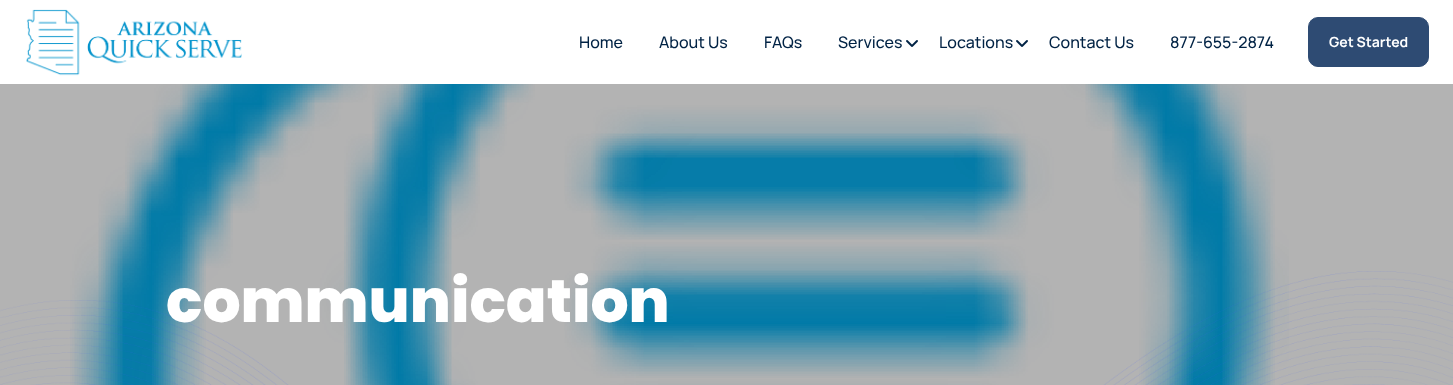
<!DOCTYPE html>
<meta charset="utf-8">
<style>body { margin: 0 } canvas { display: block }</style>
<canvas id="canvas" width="1453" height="385"></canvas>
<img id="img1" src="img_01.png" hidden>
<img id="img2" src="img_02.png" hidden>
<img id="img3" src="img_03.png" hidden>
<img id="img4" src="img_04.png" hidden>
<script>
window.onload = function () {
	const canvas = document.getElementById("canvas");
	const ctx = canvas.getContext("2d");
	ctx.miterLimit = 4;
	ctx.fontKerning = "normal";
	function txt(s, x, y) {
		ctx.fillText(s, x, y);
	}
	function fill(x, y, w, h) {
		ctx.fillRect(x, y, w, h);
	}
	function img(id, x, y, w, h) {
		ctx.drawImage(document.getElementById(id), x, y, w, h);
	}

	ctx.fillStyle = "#FFFFFF";
	fill(0, 0, 1453, 385);
	ctx.fillStyle = "#B3B3B3";
	fill(0, 84, 1453, 301);
	img("img1", 26, 9, 216, 67);
	img("img2", 906, 40, 12, 7);
	img("img2", 1016, 40, 12, 7);
	ctx.fillStyle = "#2E4B73";
	ctx.beginPath();
	ctx.roundRect(1308.5, 17.5, 120, 49, 9.5);
	ctx.fill();
	ctx.strokeStyle = "#2E4B73";
	ctx.stroke();
	img("img3", 70, 84, 1219, 301);
	img("img4", 0, 271, 1453, 114);
	ctx.font = "500 16px Manrope";
	ctx.fillStyle = "#002244";
	txt("Home", 579, 48);
	txt("About Us", 659, 48);
	txt("FAQs", 764, 48);
	txt("Services", 838, 48);
	txt("Locations", 939, 48);
	txt("Contact Us", 1049, 48);
	txt("877-655-2874", 1170, 48);
	ctx.font = "bold 14px Manrope";
	ctx.fillStyle = "#FFFFFF";
	txt("Get Started", 1329, 47);
	ctx.font = "800 60px Poppins";
	txt("communication", 166, 322);
};
</script>
